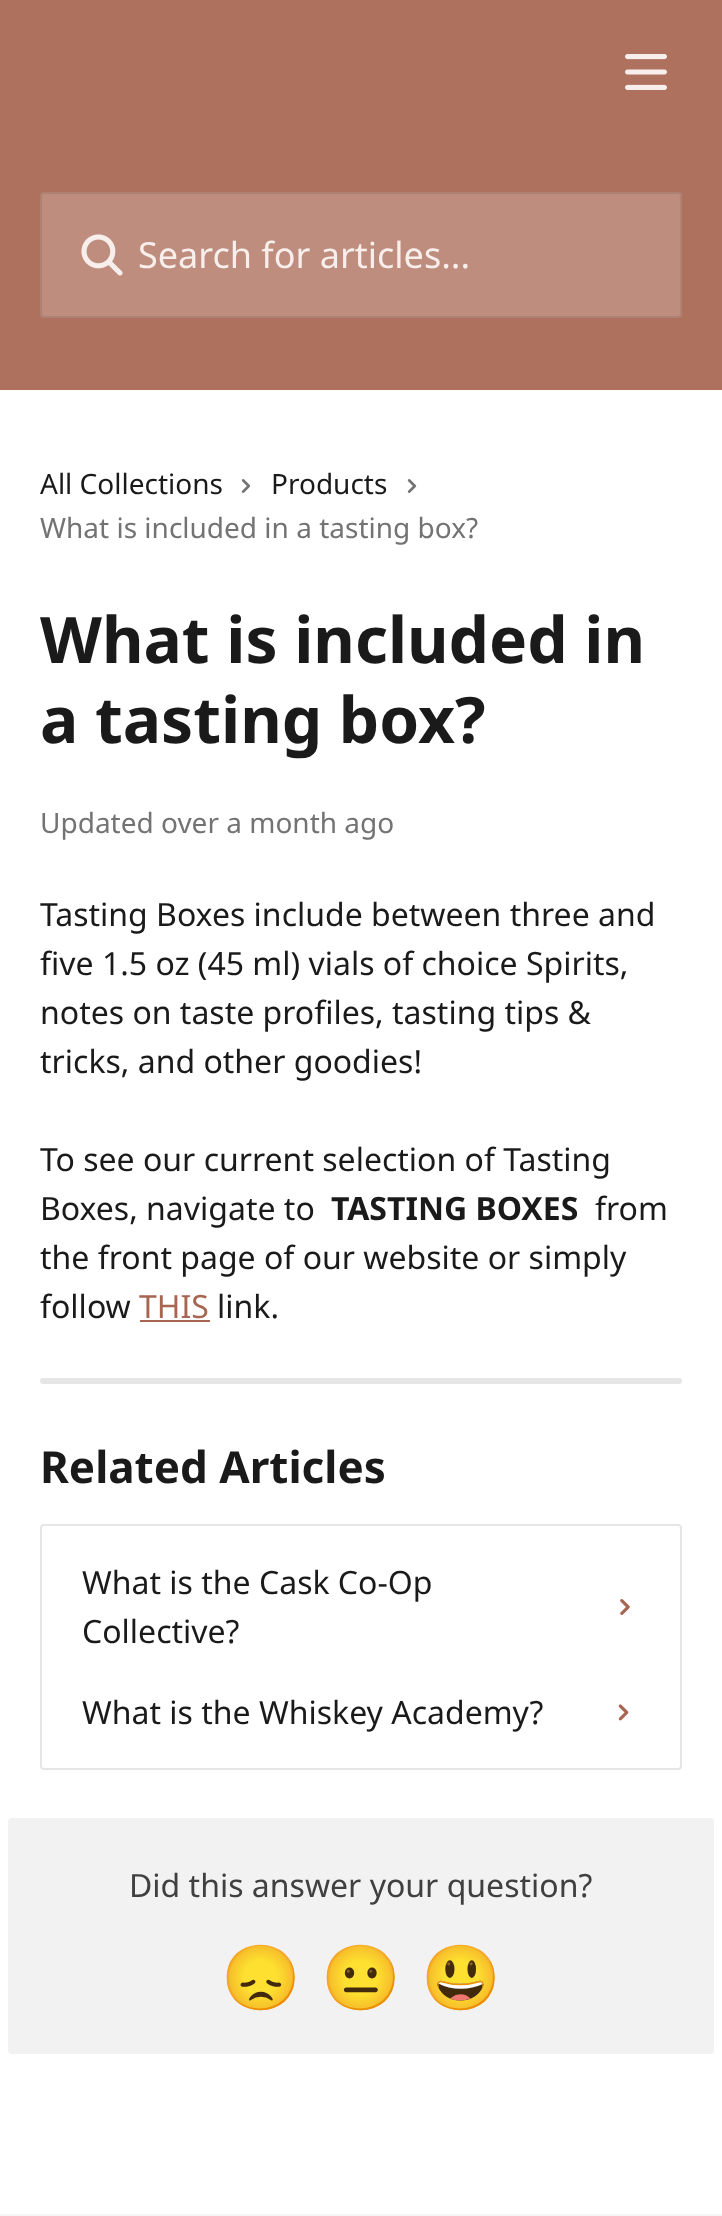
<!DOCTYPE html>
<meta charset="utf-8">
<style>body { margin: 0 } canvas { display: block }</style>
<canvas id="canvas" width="722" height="2216"></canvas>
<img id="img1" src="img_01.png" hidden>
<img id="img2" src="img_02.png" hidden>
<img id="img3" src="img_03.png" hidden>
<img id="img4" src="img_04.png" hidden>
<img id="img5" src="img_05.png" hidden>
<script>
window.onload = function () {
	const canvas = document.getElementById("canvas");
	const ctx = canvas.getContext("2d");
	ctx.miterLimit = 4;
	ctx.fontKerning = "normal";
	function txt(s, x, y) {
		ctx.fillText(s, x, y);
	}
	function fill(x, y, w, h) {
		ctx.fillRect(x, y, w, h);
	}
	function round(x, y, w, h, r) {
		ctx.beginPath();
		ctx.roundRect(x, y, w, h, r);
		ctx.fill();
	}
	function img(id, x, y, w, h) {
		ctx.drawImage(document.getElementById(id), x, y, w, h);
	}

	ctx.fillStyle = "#FFFFFF";
	fill(0, 0, 722, 2216);
	ctx.fillStyle = "#AE715E";
	fill(0, 0, 722, 390);
	img("img1", 625, 54, 42, 36);
	ctx.fillStyle = "#BE8D7E";
	round(40, 192, 642, 126, 4);
	ctx.beginPath();
	ctx.roundRect(41, 193, 640, 124, 3);
	ctx.strokeStyle = "rgba(0, 0, 0, 0.08)";
	ctx.lineWidth = 2;
	ctx.stroke();
	img("img2", 81, 234, 42, 42);
	img("img3", 241, 479, 10, 14);
	img("img3", 407, 479, 10, 14);
	ctx.fillStyle = "#A76552";
	fill(140, 1320, 70, 2);
	ctx.fillStyle = "#E6E6E6";
	round(40, 1378, 642, 6, 3);
	ctx.beginPath();
	ctx.roundRect(41, 1525, 640, 244, 3);
	ctx.strokeStyle = "#E6E6E6";
	ctx.stroke();
	img("img4", 620, 1599, 10, 16);
	img("img5", 618, 1704, 11, 17);
	ctx.fillStyle = "#F2F2F2";
	round(8, 1818, 706, 236, 4);
	ctx.fillStyle = "#F7F6F5";
	fill(0, 2214, 722, 2);
	ctx.font = "36px Noto Sans";
	ctx.fillStyle = "#F8EFED";
	txt("Search for articles...", 138, 268);
	ctx.font = "28px Noto Sans";
	ctx.fillStyle = "#1A1A1A";
	txt("All Collections", 40, 494);
	txt("Products", 271, 494);
	ctx.fillStyle = "#737373";
	txt("What is included in a tasting box?", 40, 538);
	ctx.font = "bold 64px Noto Sans";
	ctx.fillStyle = "#1A1A1A";
	txt("What is included in", 40, 663);
	txt("a tasting box?", 40, 743);
	ctx.font = "28px Noto Sans";
	ctx.fillStyle = "#737373";
	txt("Updated over a month ago", 40, 833);
	ctx.font = "32px Noto Sans";
	ctx.fillStyle = "#1A1A1A";
	txt("Tasting Boxes include between three and", 40, 926);
	txt("five 1.5 oz (45 ml) vials of choice Spirits,", 40, 975);
	txt("notes on taste profiles, tasting tips &", 40, 1024);
	txt("tricks, and other goodies!", 40, 1073);
	txt("To see our current selection of Tasting", 40, 1171);
	txt("Boxes, navigate to", 40, 1220);
	ctx.font = "bold 32px Noto Sans";
	txt("TASTING BOXES", 331, 1220);
	ctx.font = "32px Noto Sans";
	txt("from", 595, 1220);
	txt("the front page of our website or simply", 40, 1269);
	txt("follow", 40, 1318);
	ctx.fillStyle = "#A76552";
	txt("THIS", 139, 1318);
	ctx.fillStyle = "#1A1A1A";
	txt("link.", 217, 1318);
	ctx.font = "bold 44px Noto Sans";
	txt("Related Articles", 40, 1483);
	ctx.font = "32px Noto Sans";
	txt("What is the Cask Co-Op", 82, 1594);
	txt("Collective?", 82, 1643);
	txt("What is the Whiskey Academy?", 82, 1724);
	ctx.fillStyle = "#404040";
	txt("Did this answer your question?", 129, 1897);
	ctx.font = "64px Noto Color Emoji";
	txt("😞", 221, 2000);
	txt("😐", 321, 2000);
	txt("😃", 421, 2000);
};
</script>
